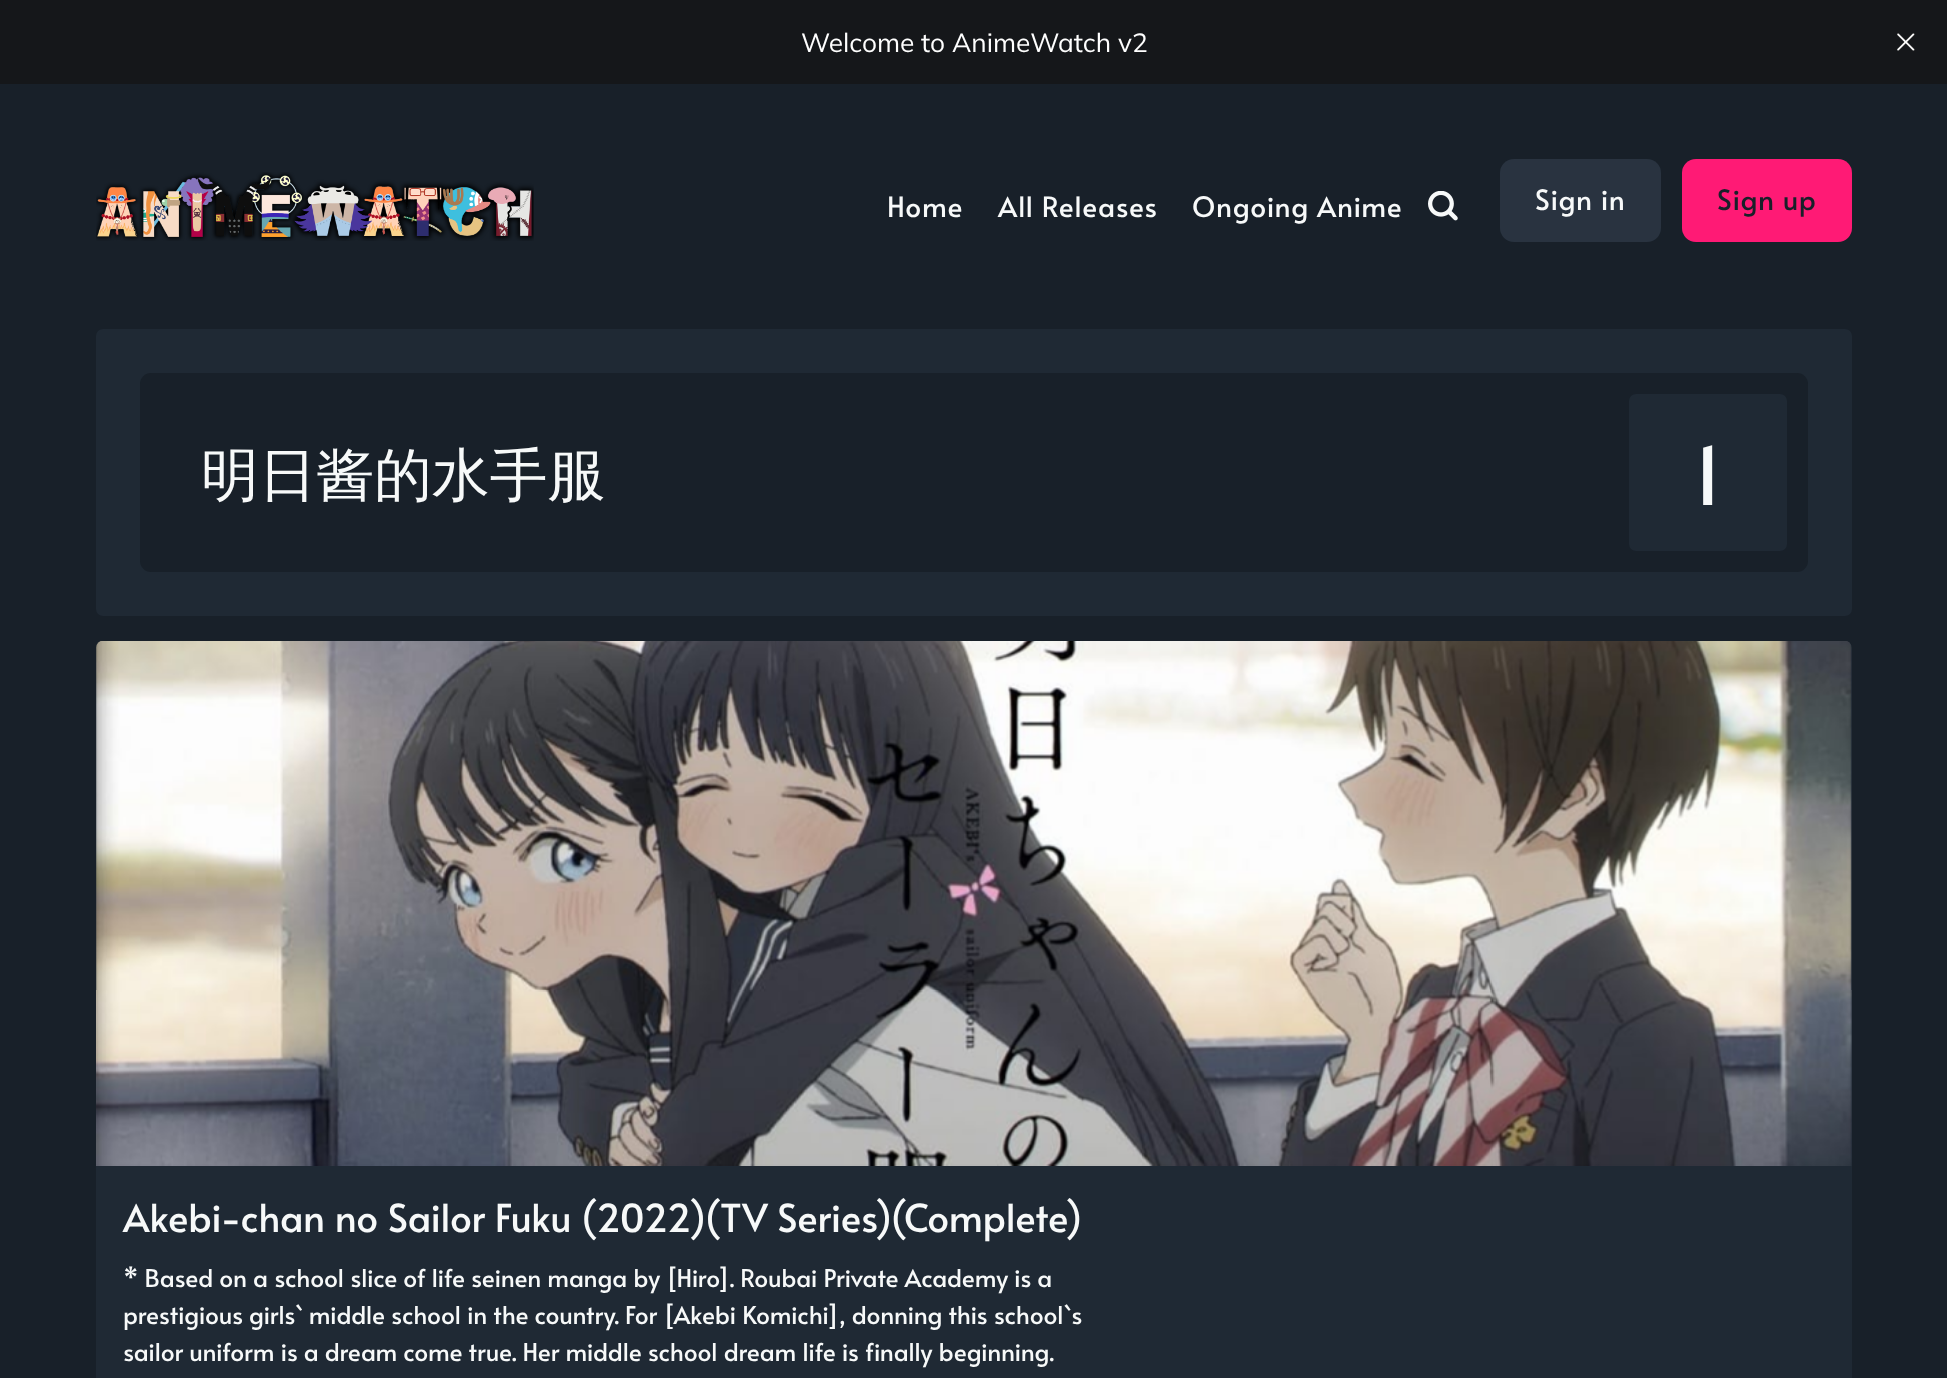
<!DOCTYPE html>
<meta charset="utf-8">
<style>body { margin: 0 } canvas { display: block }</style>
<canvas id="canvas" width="1947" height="1378"></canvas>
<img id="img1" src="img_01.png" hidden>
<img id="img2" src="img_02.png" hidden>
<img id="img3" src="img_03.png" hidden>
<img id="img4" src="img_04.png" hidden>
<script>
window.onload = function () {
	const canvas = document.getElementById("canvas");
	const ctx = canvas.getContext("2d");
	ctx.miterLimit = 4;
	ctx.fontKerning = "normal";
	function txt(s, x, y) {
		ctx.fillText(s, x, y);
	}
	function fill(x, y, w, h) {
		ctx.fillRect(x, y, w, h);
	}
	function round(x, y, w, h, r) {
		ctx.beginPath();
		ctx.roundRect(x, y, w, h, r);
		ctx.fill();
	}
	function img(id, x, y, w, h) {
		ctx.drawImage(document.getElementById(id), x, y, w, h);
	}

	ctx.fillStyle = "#182029";
	fill(0, 0, 1947, 1378);
	ctx.fillStyle = "#15171A";
	fill(0, 0, 1947, 84);
	img("img1", 1897, 33, 18, 18);
	img("img2", 96, 172, 438, 69);
	img("img3", 1428, 191, 30, 30);
	ctx.fillStyle = "#293340";
	round(1500, 159, 161, 83, 14);
	ctx.fillStyle = "#FF1A75";
	round(1682, 159, 170, 83, 14);
	ctx.fillStyle = "#1F2934";
	round(96, 329, 1756, 287, 7);
	ctx.fillStyle = "#182029";
	round(140, 373, 1668, 199, 11);
	ctx.fillStyle = "#1F2934";
	round(1629, 394, 158, 157, 7);
	round(96, 641, 1756, 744, 7);
	img("img4", 96, 641, 1756, 525);
	ctx.font = "26.25px Mulish";
	ctx.fillStyle = "#FFFFFF";
	txt("Welcome to AnimeWatch v2", 801, 52);
	ctx.letterSpacing = "0.9px";
	ctx.font = "28px Alata";
	ctx.fillStyle = "#F7F9F9";
	txt("Home", 887, 217);
	txt("All Releases", 998, 217);
	txt("Ongoing Anime", 1192, 217);
	txt("Sign in", 1535, 210);
	ctx.fillStyle = "#182029";
	txt("Sign up", 1717, 210);
	ctx.letterSpacing = "0px";
	ctx.font = "500 57.75px WenQuanYi Zen Hei";
	ctx.fillStyle = "#F7F9F9";
	txt("明日酱的水手服", 201, 495);
	ctx.font = "79px Alata";
	txt("1", 1693, 505);
	ctx.font = "38.5px Alata";
	txt("Akebi-chan no Sailor Fuku (2022)(TV Series)(Complete)", 123, 1232);
	ctx.font = "24.5px Alata";
	txt("* Based on a school slice of life seinen manga by [Hiro]. Roubai Private Academy is a", 123, 1287);
	txt("prestigious girls` middle school in the country. For [Akebi Komichi], donning this school`s", 123, 1324);
	txt("sailor uniform is a dream come true. Her middle school dream life is finally beginning.", 123, 1361);
};
</script>
